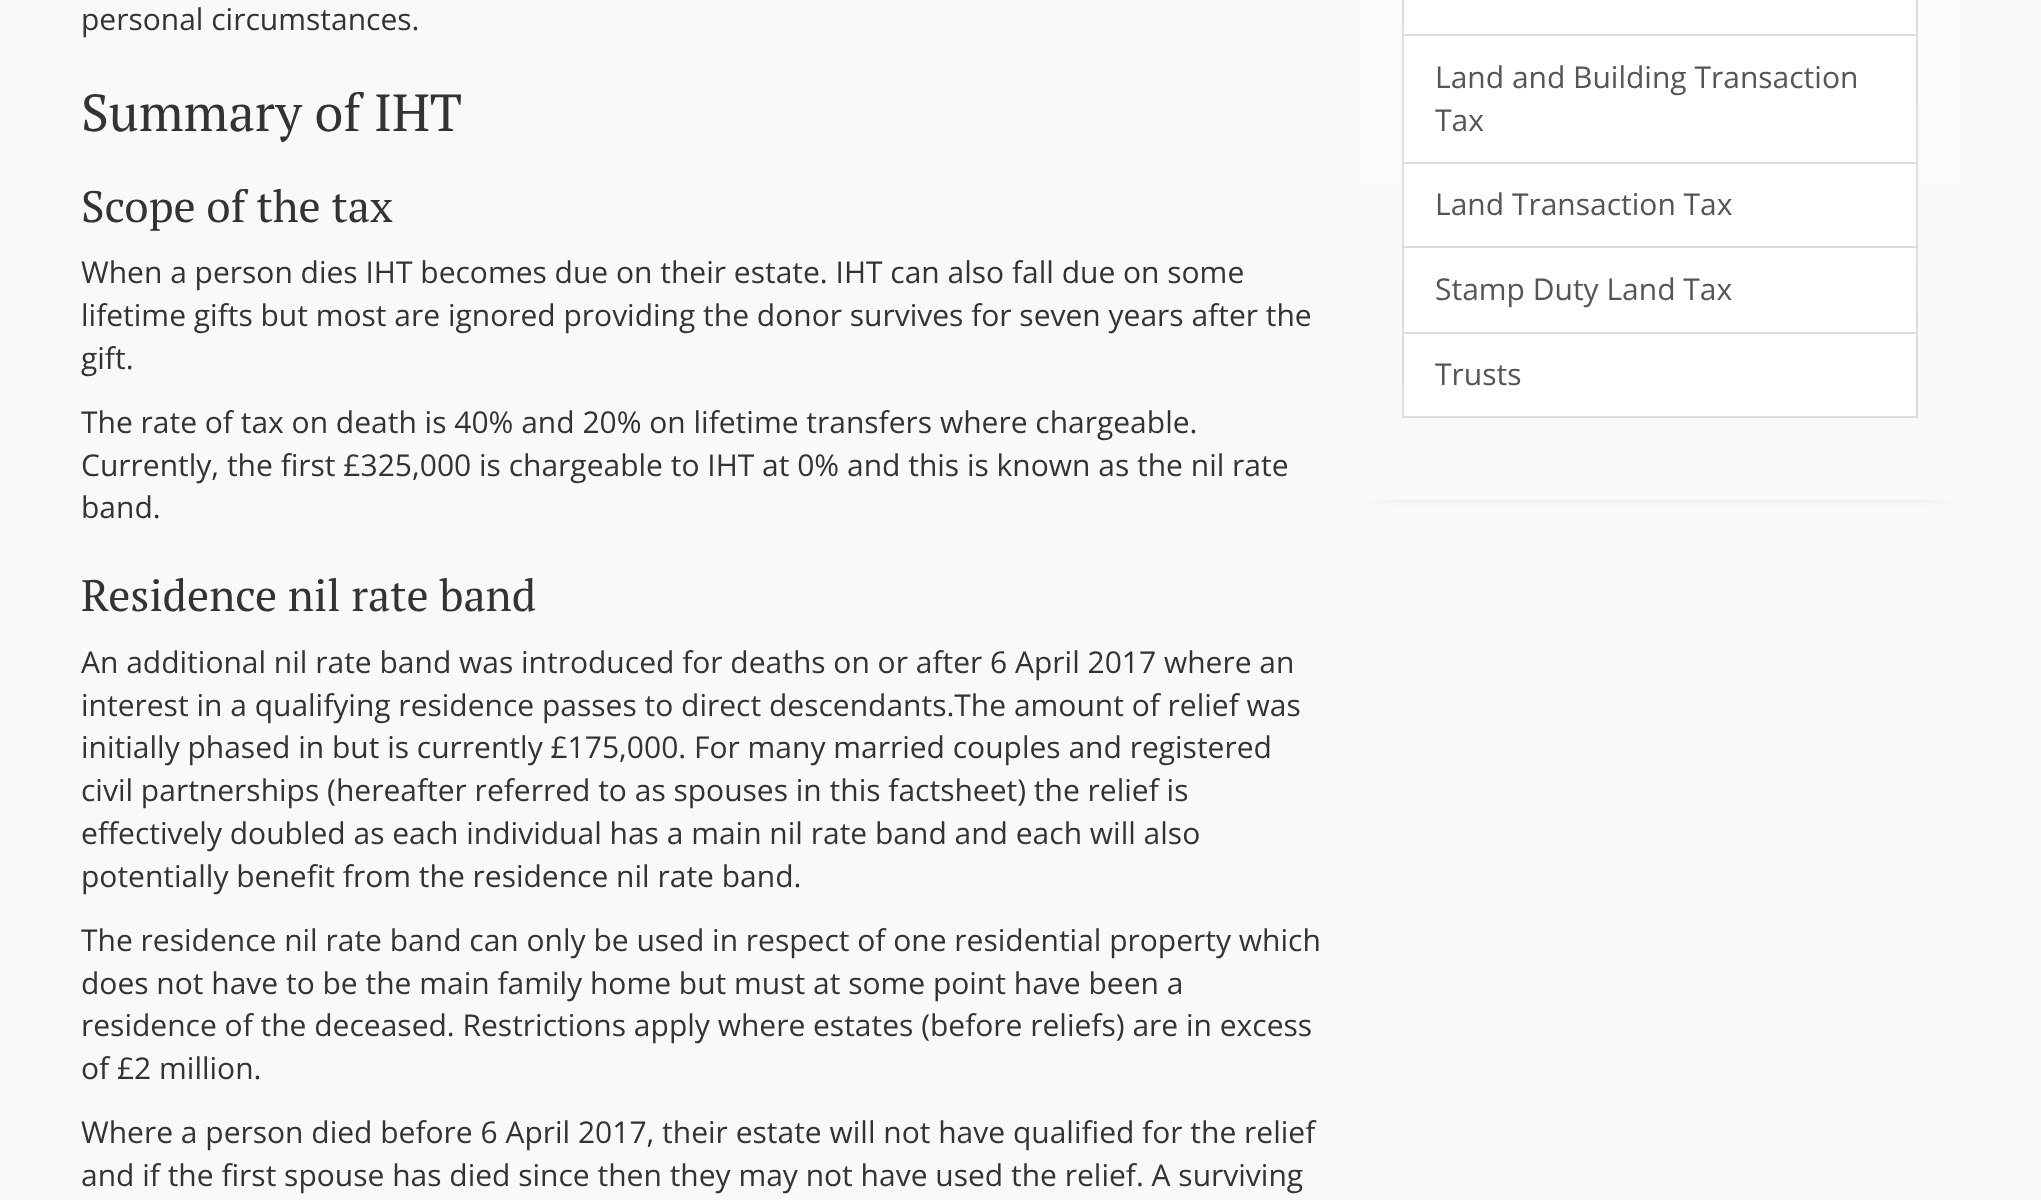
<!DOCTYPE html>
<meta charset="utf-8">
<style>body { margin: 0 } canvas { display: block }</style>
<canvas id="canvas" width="2041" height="1200"></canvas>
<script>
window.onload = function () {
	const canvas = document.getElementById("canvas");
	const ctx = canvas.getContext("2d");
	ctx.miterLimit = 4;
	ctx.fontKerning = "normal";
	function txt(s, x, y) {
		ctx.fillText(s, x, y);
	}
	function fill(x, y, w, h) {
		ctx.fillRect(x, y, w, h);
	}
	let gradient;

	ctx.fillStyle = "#F9F9F9";
	fill(0, 0, 2041, 1200);
	ctx.fillStyle = "#000000";
	ctx.filter = "blur(9px)";
	ctx.beginPath();
	ctx.rect(1380, -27, 560, 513);
	ctx.fill();
	ctx.filter = "none";
	gradient = ctx.createLinearGradient(1660, -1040, 1660, 500);
	gradient.addColorStop(0, "#FFFFFF");
	gradient.addColorStop(1, "#F9F9F9");
	ctx.fillStyle = gradient;
	fill(1360, 0, 600, 500);
	ctx.fillStyle = "#FFFFFF";
	ctx.beginPath();
	ctx.rect(1403, -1, 514, 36);
	ctx.fill();
	ctx.strokeStyle = "#DDDDDD";
	ctx.lineWidth = 2;
	ctx.stroke();
	ctx.beginPath();
	ctx.rect(1403, 35, 514, 128);
	ctx.fill();
	ctx.stroke();
	ctx.beginPath();
	ctx.rect(1403, 163, 514, 84);
	ctx.fill();
	ctx.stroke();
	ctx.beginPath();
	ctx.rect(1403, 247, 514, 86);
	ctx.fill();
	ctx.stroke();
	ctx.beginPath();
	ctx.rect(1403, 333, 514, 84);
	ctx.fill();
	ctx.stroke();
	ctx.font = "30px Open Sans";
	ctx.fillStyle = "#333333";
	txt("personal circumstances.", 81, 30);
	ctx.font = "52px PT Serif";
	txt("Summary of IHT", 81, 131);
	ctx.font = "44px PT Serif";
	txt("Scope of the tax", 81, 222);
	ctx.font = "30px Open Sans";
	txt("When a person dies IHT becomes due on their estate. IHT can also fall due on some", 81, 283);
	txt("lifetime gifts but most are ignored providing the donor survives for seven years after the", 81, 326);
	txt("gift.", 81, 369);
	txt("The rate of tax on death is 40% and 20% on lifetime transfers where chargeable.", 81, 433);
	txt("Currently, the first £325,000 is chargeable to IHT at 0% and this is known as the nil rate", 81, 476);
	txt("band.", 81, 518);
	ctx.font = "44px PT Serif";
	txt("Residence nil rate band", 81, 611);
	ctx.font = "30px Open Sans";
	txt("An additional nil rate band was introduced for deaths on or after 6 April 2017 where an", 81, 673);
	txt("interest in a qualifying residence passes to direct descendants.The amount of relief was", 81, 716);
	txt("initially phased in but is currently £175,000. For many married couples and registered", 81, 758);
	txt("civil partnerships (hereafter referred to as spouses in this factsheet) the relief is", 81, 801);
	txt("effectively doubled as each individual has a main nil rate band and each will also", 81, 844);
	txt("potentially benefit from the residence nil rate band.", 81, 887);
	txt("The residence nil rate band can only be used in respect of one residential property which", 81, 951);
	txt("does not have to be the main family home but must at some point have been a", 81, 994);
	txt("residence of the deceased. Restrictions apply where estates (before reliefs) are in excess", 81, 1036);
	txt("of £2 million.", 81, 1079);
	txt("Where a person died before 6 April 2017, their estate will not have qualified for the relief", 81, 1143);
	txt("and if the first spouse has died since then they may not have used the relief. A surviving", 81, 1186);
	ctx.fillStyle = "#555555";
	txt("Land and Building Transaction", 1435, 88);
	txt("Tax", 1435, 131);
	txt("Land Transaction Tax", 1435, 215);
	txt("Stamp Duty Land Tax", 1435, 300);
	txt("Trusts", 1435, 385);
};
</script>
